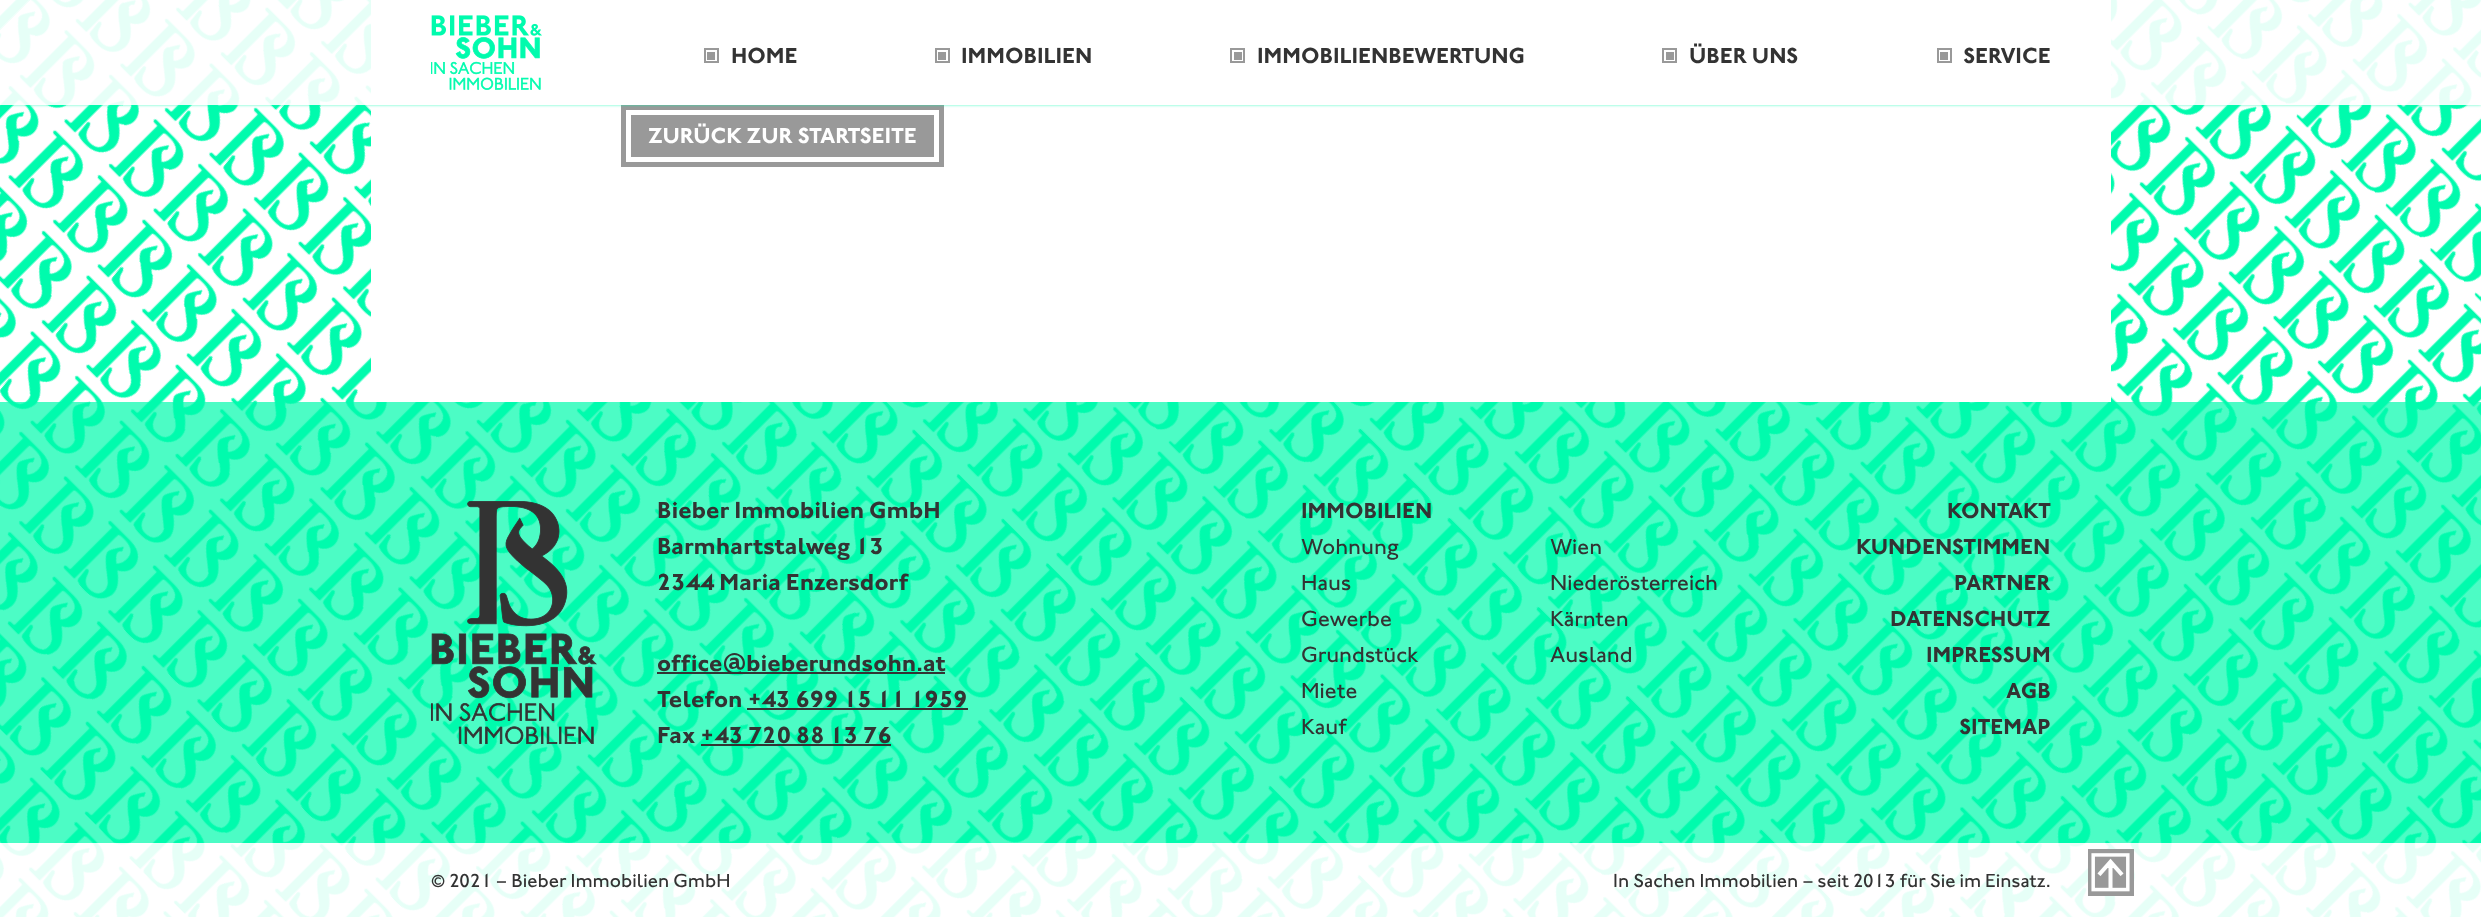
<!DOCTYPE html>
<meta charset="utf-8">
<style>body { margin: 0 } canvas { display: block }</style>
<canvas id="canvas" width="2481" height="917"></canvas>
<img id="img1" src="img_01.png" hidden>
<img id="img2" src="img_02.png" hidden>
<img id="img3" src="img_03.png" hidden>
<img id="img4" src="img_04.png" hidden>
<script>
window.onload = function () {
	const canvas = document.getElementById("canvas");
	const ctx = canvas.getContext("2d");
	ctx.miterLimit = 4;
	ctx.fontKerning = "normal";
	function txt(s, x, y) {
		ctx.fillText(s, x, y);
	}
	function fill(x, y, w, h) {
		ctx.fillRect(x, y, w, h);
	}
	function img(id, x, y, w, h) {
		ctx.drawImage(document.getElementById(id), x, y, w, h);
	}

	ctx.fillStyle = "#FFFFFF";
	fill(0, 0, 2481, 917);
	img("img1", 0, 0, 2481, 917);
	fill(371, 0, 1740, 402);
	ctx.fillStyle = "#999999";
	fill(631, 115, 303, 42);
	ctx.strokeStyle = "#999999";
	ctx.lineWidth = 5;
	ctx.strokeRect(623.5, 107.5, 318, 57);
	ctx.save();
	ctx.beginPath();
	ctx.rect(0, 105, 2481, 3);
	ctx.clip();
	ctx.fillStyle = "rgba(0, 251, 173, 0.7)";
	ctx.filter = "blur(1.5px)";
	ctx.beginPath();
	ctx.rect(0, 0, 2481, 105);
	ctx.fill();
	ctx.filter = "none";
	ctx.restore();
	ctx.fillStyle = "rgba(255, 255, 255, 0.9)";
	fill(0, 0, 2481, 105);
	img("img2", 431, 15, 111, 75);
	ctx.fillStyle = "#999999";
	fill(707, 52, 8, 8);
	ctx.lineWidth = 2;
	ctx.strokeRect(705, 49, 13, 13);
	fill(938, 52, 8, 8);
	ctx.strokeRect(936, 49, 13, 13);
	fill(1234, 52, 8, 8);
	ctx.strokeRect(1231, 49, 13, 13);
	fill(1666, 52, 8, 8);
	ctx.strokeRect(1663, 49, 13, 13);
	fill(1940, 52, 8, 8);
	ctx.strokeRect(1938, 49, 13, 13);
	ctx.fillStyle = "rgba(0, 251, 173, 0.7)";
	fill(0, 402, 2481, 441);
	img("img3", 431, 501, 166, 243);
	ctx.fillStyle = "#333333";
	fill(657, 672, 288, 2);
	fill(747, 708, 221, 2);
	fill(701, 744, 190, 2);
	ctx.fillStyle = "rgba(255, 255, 255, 0.9)";
	fill(0, 843, 2481, 74);
	img("img4", 2088, 849, 46, 47);
	ctx.font = "bold 22.5px 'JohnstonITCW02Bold'";
	ctx.fillStyle = "#333333";
	txt("HOME", 731, 63);
	txt("IMMOBILIEN", 961, 63);
	txt("IMMOBILIENBEWERTUNG", 1257, 63);
	txt("ÜBER UNS", 1689, 63);
	txt("SERVICE", 1963, 63);
	ctx.fillStyle = "#FFFFFF";
	txt("ZURÜCK ZUR STARTSEITE", 648, 143);
	ctx.font = "bold 24px 'JohnstonITCW02Bold'";
	ctx.fillStyle = "#333333";
	txt("Bieber Immobilien GmbH", 657, 518);
	txt("Barmhartstalweg 13", 657, 554);
	txt("2344 Maria Enzersdorf", 657, 590);
	txt("office@bieberundsohn.at", 657, 671);
	txt("Telefon +43 699 15 11 1959", 657, 707);
	txt("Fax +43 720 88 13 76", 657, 743);
	ctx.font = "bold 22.5px 'JohnstonITCW02Bold'";
	txt("IMMOBILIEN", 1301, 518);
	ctx.font = "500 22.5px 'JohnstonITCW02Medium'";
	txt("Wohnung", 1301, 554);
	txt("Haus", 1301, 590);
	txt("Gewerbe", 1301, 626);
	txt("Grundstück", 1301, 662);
	txt("Miete", 1301, 698);
	txt("Kauf", 1301, 734);
	txt("Wien", 1550, 554);
	txt("Niederösterreich", 1550, 590);
	txt("Kärnten", 1550, 626);
	txt("Ausland", 1550, 662);
	ctx.font = "bold 22.5px 'JohnstonITCW02Bold'";
	txt("KONTAKT", 1947, 518);
	txt("KUNDENSTIMMEN", 1856, 554);
	txt("PARTNER", 1954, 590);
	txt("DATENSCHUTZ", 1890, 626);
	txt("IMPRESSUM", 1926, 662);
	txt("AGB", 2006, 698);
	txt("SITEMAP", 1959, 734);
	ctx.font = "500 19.5px 'JohnstonITCW02Medium'";
	txt("© 2021 – Bieber Immobilien GmbH", 431, 887);
	txt("In Sachen Immobilien – seit 2013 für Sie im Einsatz.", 1613, 887);
};
</script>
